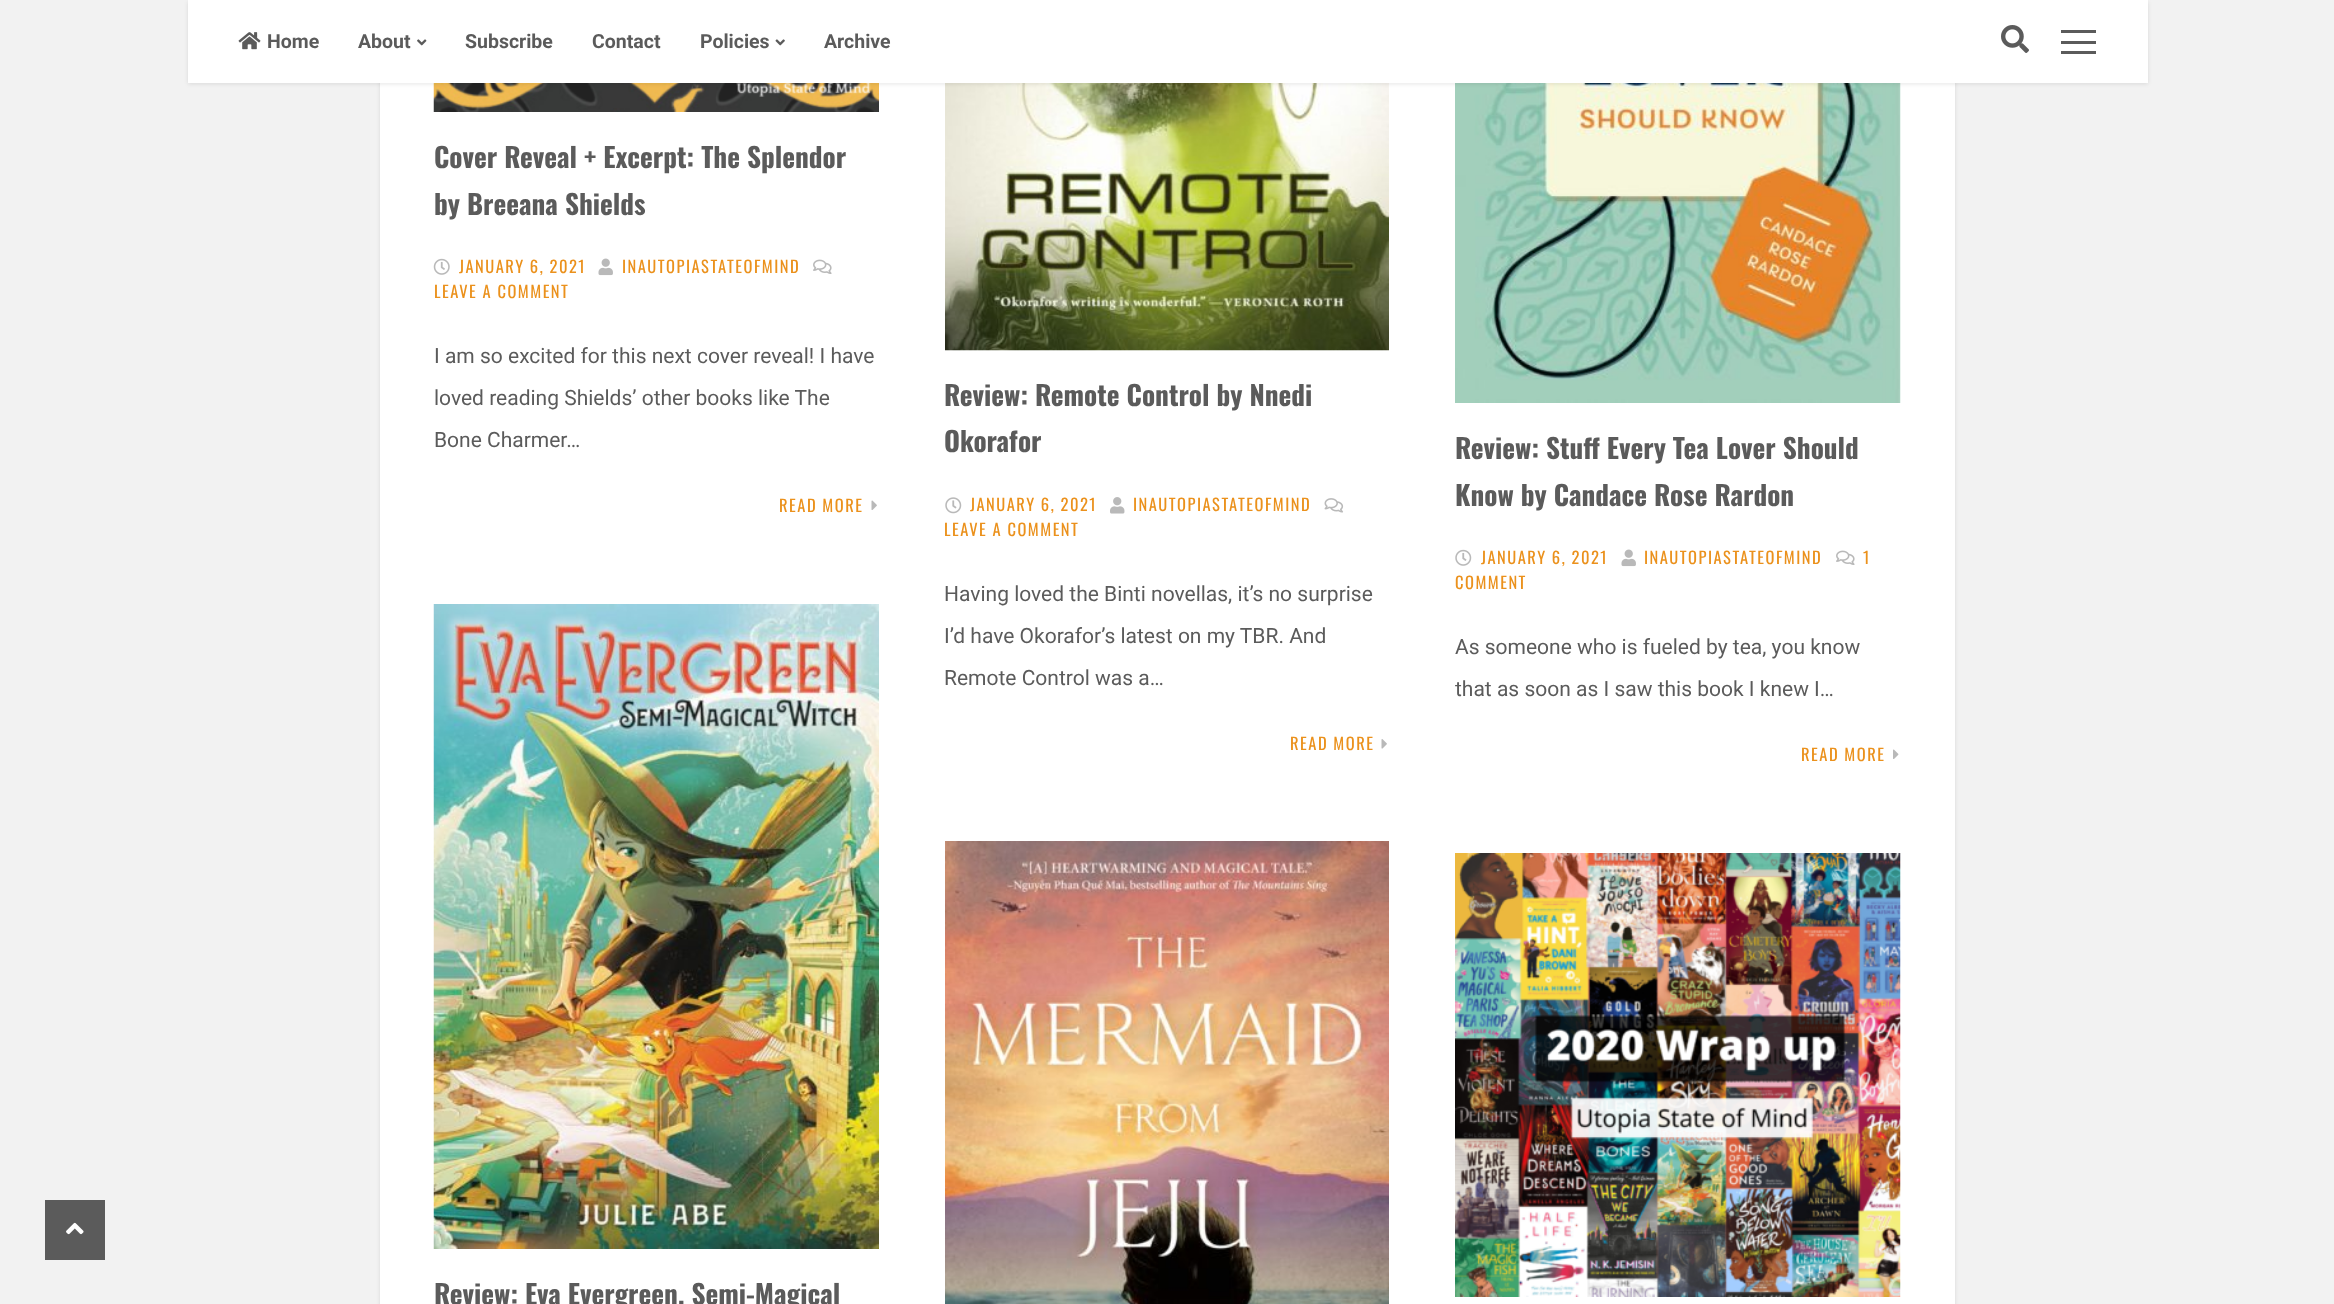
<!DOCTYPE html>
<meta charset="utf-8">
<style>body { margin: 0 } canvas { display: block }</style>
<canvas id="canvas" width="2334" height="1304"></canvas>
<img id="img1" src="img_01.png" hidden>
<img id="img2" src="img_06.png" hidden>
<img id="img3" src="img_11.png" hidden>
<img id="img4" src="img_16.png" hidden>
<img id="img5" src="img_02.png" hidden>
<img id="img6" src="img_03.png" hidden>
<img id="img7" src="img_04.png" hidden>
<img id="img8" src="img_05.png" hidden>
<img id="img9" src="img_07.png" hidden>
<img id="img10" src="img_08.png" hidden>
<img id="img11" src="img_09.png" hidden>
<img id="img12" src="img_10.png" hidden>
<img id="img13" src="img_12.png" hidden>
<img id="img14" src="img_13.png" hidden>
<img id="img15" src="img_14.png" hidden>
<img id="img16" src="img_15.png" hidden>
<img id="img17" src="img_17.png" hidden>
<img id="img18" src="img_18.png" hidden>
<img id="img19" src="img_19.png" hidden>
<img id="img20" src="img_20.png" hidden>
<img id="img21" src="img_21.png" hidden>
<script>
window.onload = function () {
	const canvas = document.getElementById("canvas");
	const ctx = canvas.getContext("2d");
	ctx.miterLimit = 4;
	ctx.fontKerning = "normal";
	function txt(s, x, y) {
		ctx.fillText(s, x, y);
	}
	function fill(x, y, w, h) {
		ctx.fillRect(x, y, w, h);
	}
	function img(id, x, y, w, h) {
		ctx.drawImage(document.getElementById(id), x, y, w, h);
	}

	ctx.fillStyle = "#F2F2F2";
	fill(0, 0, 2334, 1304);
	ctx.fillStyle = "#5B5B5B";
	fill(45, 1200, 60, 60);
	img("img1", 66, 1222, 18, 13);
	ctx.fillStyle = "rgba(13, 13, 13, 0.1)";
	ctx.filter = "blur(2px)";
	ctx.beginPath();
	ctx.rect(380, -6, 1575, 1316);
	ctx.fill();
	ctx.filter = "none";
	ctx.fillStyle = "#FFFFFF";
	fill(380, 83, 1575, 1221);
	img("img2", 433, 83, 446, 29);
	img("img3", 945, 83, 444, 268);
	img("img4", 1455, 83, 446, 320);
	ctx.fillStyle = "rgba(13, 13, 13, 0.1)";
	ctx.filter = "blur(2px)";
	ctx.beginPath();
	ctx.rect(188, 2, 1960, 82);
	ctx.fill();
	ctx.filter = "none";
	ctx.fillStyle = "#FFFFFF";
	fill(188, 0, 1960, 83);
	img("img5", 238, 32, 23, 18);
	img("img6", 417, 39, 10, 7);
	img("img7", 775, 39, 10, 7);
	img("img8", 2001, 25, 28, 28);
	ctx.fillStyle = "#5B5B5B";
	fill(2061, 41, 35, 3);
	fill(2061, 30, 35, 3);
	fill(2061, 51, 35, 3);
	img("img9", 433, 258, 17, 17);
	img("img10", 598, 258, 15, 18);
	img("img11", 813, 259, 19, 15);
	img("img12", 871, 500, 6, 10);
	img("img13", 945, 497, 17, 17);
	img("img14", 1110, 497, 15, 17);
	img("img15", 1324, 498, 20, 15);
	img("img16", 1381, 739, 6, 10);
	img("img11", 1836, 550, 19, 15);
	img("img17", 1455, 549, 17, 17);
	img("img10", 1621, 549, 15, 18);
	img("img18", 1893, 749, 6, 10);
	img("img19", 433, 604, 446, 645);
	img("img20", 945, 841, 444, 463);
	img("img21", 1455, 853, 446, 444);
	ctx.font = "bold 19.5px Roboto";
	txt("Home", 267, 48);
	txt("About", 358, 48);
	txt("Subscribe", 465, 48);
	txt("Contact", 592, 48);
	txt("Policies", 700, 48);
	txt("Archive", 824, 48);
	ctx.font = "bold 27.25px Oswald";
	txt("Cover Reveal + Excerpt: The Splendor", 434, 168);
	txt("by Breeana Shields", 434, 215);
	ctx.letterSpacing = "1.5px";
	ctx.font = "16.5px Oswald";
	ctx.fillStyle = "#EB911C";
	txt("JANUARY 6, 2021", 459, 273);
	txt("INAUTOPIASTATEOFMIND", 622, 273);
	txt("LEAVE A COMMENT", 434, 298);
	ctx.letterSpacing = "0px";
	ctx.font = "21px Roboto";
	ctx.fillStyle = "#5B5B5B";
	txt("I am so excited for this next cover reveal! I have", 434, 363);
	txt("loved reading Shields’ other books like The", 434, 405);
	txt("Bone Charmer…", 434, 447);
	ctx.letterSpacing = "1.5px";
	ctx.font = "16.5px Oswald";
	ctx.fillStyle = "#EB911C";
	txt("READ MORE", 779, 512);
	ctx.letterSpacing = "0px";
	ctx.font = "bold 27.25px Oswald";
	ctx.fillStyle = "#5B5B5B";
	txt("Review: Remote Control by Nnedi", 944, 406);
	txt("Okorafor", 944, 452);
	ctx.letterSpacing = "1.5px";
	ctx.font = "16.5px Oswald";
	ctx.fillStyle = "#EB911C";
	txt("JANUARY 6, 2021", 970, 511);
	txt("INAUTOPIASTATEOFMIND", 1133, 511);
	txt("LEAVE A COMMENT", 944, 536);
	ctx.letterSpacing = "0px";
	ctx.font = "21px Roboto";
	ctx.fillStyle = "#5B5B5B";
	txt("Having loved the Binti novellas, it’s no surprise", 944, 601);
	txt("I’d have Okorafor’s latest on my TBR. And", 944, 643);
	txt("Remote Control was a…", 944, 685);
	ctx.letterSpacing = "1.5px";
	ctx.font = "16.5px Oswald";
	ctx.fillStyle = "#EB911C";
	txt("READ MORE", 1290, 750);
	ctx.letterSpacing = "0px";
	ctx.font = "bold 27.25px Oswald";
	ctx.fillStyle = "#5B5B5B";
	txt("Review: Stuff Every Tea Lover Should", 1455, 459);
	txt("Know by Candace Rose Rardon", 1455, 506);
	ctx.letterSpacing = "1.5px";
	ctx.font = "16.5px Oswald";
	ctx.fillStyle = "#EB911C";
	txt("1", 1863, 564);
	txt("COMMENT", 1455, 589);
	txt("JANUARY 6, 2021", 1481, 564);
	txt("INAUTOPIASTATEOFMIND", 1644, 564);
	ctx.letterSpacing = "0px";
	ctx.font = "21px Roboto";
	ctx.fillStyle = "#5B5B5B";
	txt("As someone who is fueled by tea, you know", 1455, 654);
	txt("that as soon as I saw this book I knew I…", 1455, 696);
	ctx.letterSpacing = "1.5px";
	ctx.font = "16.5px Oswald";
	ctx.fillStyle = "#EB911C";
	txt("READ MORE", 1801, 761);
	ctx.letterSpacing = "0px";
	ctx.font = "bold 27.25px Oswald";
	ctx.fillStyle = "#5B5B5B";
	txt("Review: Eva Evergreen, Semi-Magical", 434, 1305);
};
</script>
